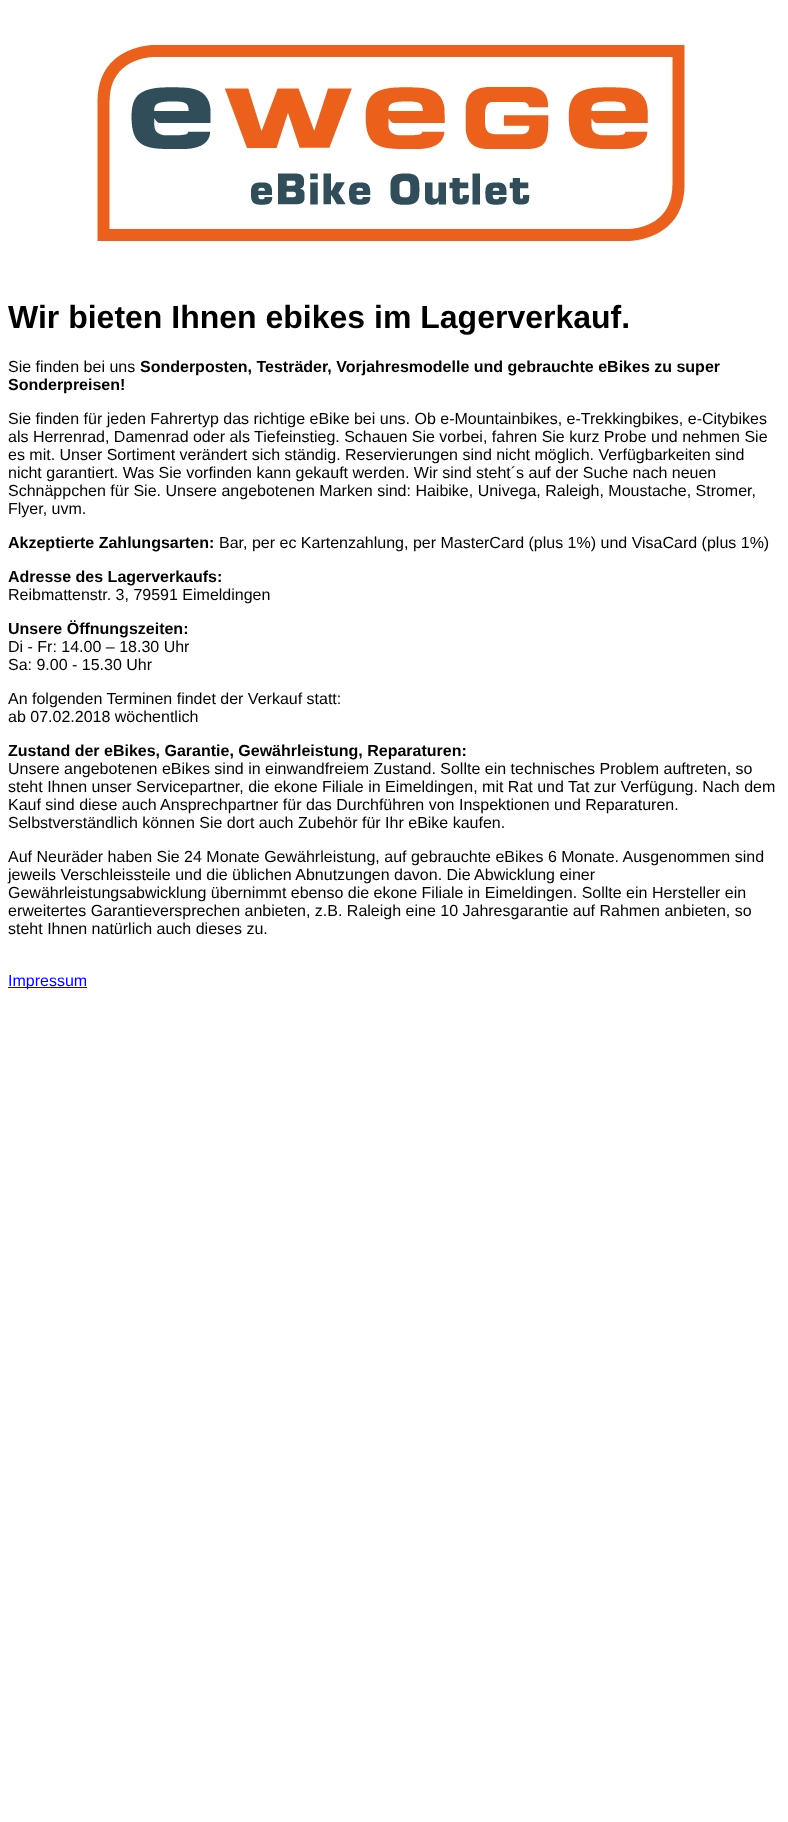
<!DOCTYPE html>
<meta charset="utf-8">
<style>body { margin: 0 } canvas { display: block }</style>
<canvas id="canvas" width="788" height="1822"></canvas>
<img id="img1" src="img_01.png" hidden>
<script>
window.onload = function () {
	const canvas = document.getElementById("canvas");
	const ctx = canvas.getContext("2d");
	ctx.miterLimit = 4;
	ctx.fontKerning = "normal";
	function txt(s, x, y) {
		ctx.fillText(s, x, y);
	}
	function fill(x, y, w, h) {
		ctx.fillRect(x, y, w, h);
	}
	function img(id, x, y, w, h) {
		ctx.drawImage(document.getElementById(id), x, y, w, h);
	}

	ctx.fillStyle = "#FFFFFF";
	fill(0, 0, 788, 1822);
	img("img1", 96, 43, 590, 200);
	ctx.fillStyle = "#0000EE";
	fill(8, 987, 79, 1);
	ctx.font = "bold 32px Liberation Sans";
	ctx.fillStyle = "#000000";
	txt("Wir bieten Ihnen ebikes im Lagerverkauf.", 8, 328);
	ctx.font = "16px Liberation Sans";
	txt("Sie finden bei uns", 8, 372);
	ctx.font = "bold 16px Liberation Sans";
	txt("Sonderposten, Testräder, Vorjahresmodelle und gebrauchte eBikes zu super", 140, 372);
	txt("Sonderpreisen!", 8, 390);
	ctx.font = "16px Liberation Sans";
	txt("Sie finden für jeden Fahrertyp das richtige eBike bei uns. Ob e-Mountainbikes, e-Trekkingbikes, e-Citybikes", 8, 424);
	txt("als Herrenrad, Damenrad oder als Tiefeinstieg. Schauen Sie vorbei, fahren Sie kurz Probe und nehmen Sie", 8, 442);
	txt("es mit. Unser Sortiment verändert sich ständig. Reservierungen sind nicht möglich. Verfügbarkeiten sind", 8, 460);
	txt("nicht garantiert. Was Sie vorfinden kann gekauft werden. Wir sind steht´s auf der Suche nach neuen", 8, 478);
	txt("Schnäppchen für Sie. Unsere angebotenen Marken sind: Haibike, Univega, Raleigh, Moustache, Stromer,", 8, 496);
	txt("Flyer, uvm.", 8, 514);
	ctx.font = "bold 16px Liberation Sans";
	txt("Akzeptierte Zahlungsarten:", 8, 548);
	ctx.font = "16px Liberation Sans";
	txt("Bar, per ec Kartenzahlung, per MasterCard (plus 1%) und VisaCard (plus 1%)", 219, 548);
	ctx.font = "bold 16px Liberation Sans";
	txt("Adresse des Lagerverkaufs:", 8, 582);
	ctx.font = "16px Liberation Sans";
	txt("Reibmattenstr. 3, 79591 Eimeldingen", 8, 600);
	ctx.font = "bold 16px Liberation Sans";
	txt("Unsere Öffnungszeiten:", 8, 634);
	ctx.font = "16px Liberation Sans";
	txt("Di - Fr: 14.00 – 18.30 Uhr", 8, 652);
	txt("Sa: 9.00 - 15.30 Uhr", 8, 670);
	txt("An folgenden Terminen findet der Verkauf statt:", 8, 704);
	txt("ab 07.02.2018 wöchentlich", 8, 722);
	ctx.font = "bold 16px Liberation Sans";
	txt("Zustand der eBikes, Garantie, Gewährleistung, Reparaturen:", 8, 756);
	ctx.font = "16px Liberation Sans";
	txt("Unsere angebotenen eBikes sind in einwandfreiem Zustand. Sollte ein technisches Problem auftreten, so", 8, 774);
	txt("steht Ihnen unser Servicepartner, die ekone Filiale in Eimeldingen, mit Rat und Tat zur Verfügung. Nach dem", 8, 792);
	txt("Kauf sind diese auch Ansprechpartner für das Durchführen von Inspektionen und Reparaturen.", 8, 810);
	txt("Selbstverständlich können Sie dort auch Zubehör für Ihr eBike kaufen.", 8, 828);
	txt("Auf Neuräder haben Sie 24 Monate Gewährleistung, auf gebrauchte eBikes 6 Monate. Ausgenommen sind", 8, 862);
	txt("jeweils Verschleissteile und die üblichen Abnutzungen davon. Die Abwicklung einer", 8, 880);
	txt("Gewährleistungsabwicklung übernimmt ebenso die ekone Filiale in Eimeldingen. Sollte ein Hersteller ein", 8, 898);
	txt("erweitertes Garantieversprechen anbieten, z.B. Raleigh eine 10 Jahresgarantie auf Rahmen anbieten, so", 8, 916);
	txt("steht Ihnen natürlich auch dieses zu.", 8, 934);
	ctx.fillStyle = "#0000EE";
	txt("Impressum", 8, 986);
};
</script>
